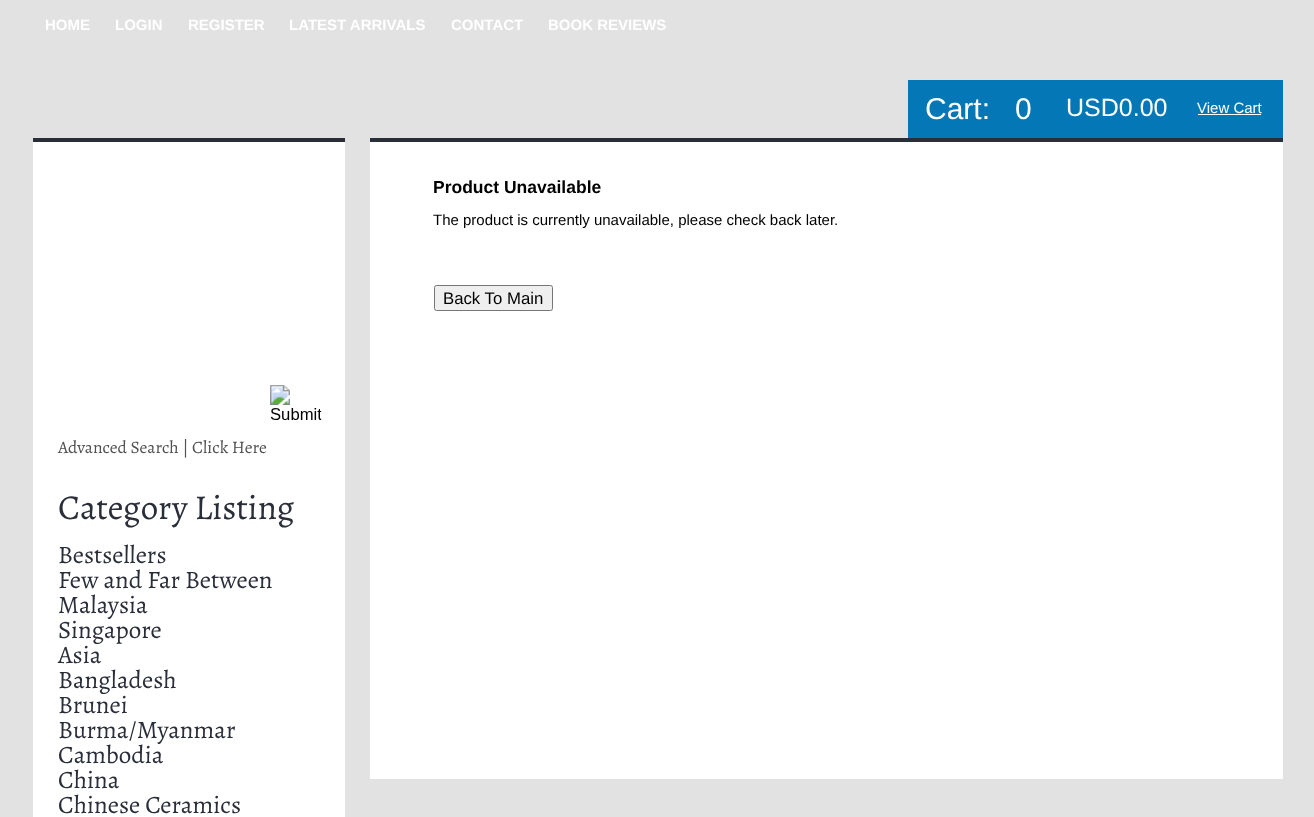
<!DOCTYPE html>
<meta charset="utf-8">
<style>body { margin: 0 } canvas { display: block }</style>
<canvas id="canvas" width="1314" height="817"></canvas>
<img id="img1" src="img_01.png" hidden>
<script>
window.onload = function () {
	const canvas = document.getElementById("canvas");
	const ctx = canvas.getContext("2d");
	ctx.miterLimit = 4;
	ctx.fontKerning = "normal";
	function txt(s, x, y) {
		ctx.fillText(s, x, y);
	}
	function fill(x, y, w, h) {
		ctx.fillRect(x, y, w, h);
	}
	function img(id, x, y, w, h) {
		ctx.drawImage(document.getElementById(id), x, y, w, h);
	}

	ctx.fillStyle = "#E2E2E2";
	fill(0, 0, 1314, 817);
	ctx.fillStyle = "#0478B6";
	fill(908, 80, 375, 58);
	ctx.fillStyle = "#FFFFFF";
	fill(1198, 114, 63, 1);
	fill(370, 142, 913, 637);
	ctx.fillStyle = "#2A2E39";
	fill(370, 138, 913, 4);
	ctx.fillStyle = "#EFEFEF";
	ctx.beginPath();
	ctx.roundRect(434.5, 285.5, 118, 25, 2);
	ctx.fill();
	ctx.strokeStyle = "#767676";
	ctx.stroke();
	ctx.fillStyle = "#FFFFFF";
	fill(33, 142, 312, 675);
	ctx.fillStyle = "#2A2E39";
	fill(33, 138, 312, 4);
	img("img1", 270, 385, 52, 35);
	ctx.font = "bold 15px Liberation Sans";
	ctx.fillStyle = "#FFFFFF";
	txt("HOME", 45, 30);
	txt("LOGIN", 115, 30);
	txt("REGISTER", 188, 30);
	txt("LATEST ARRIVALS", 289, 30);
	txt("CONTACT", 451, 30);
	txt("BOOK REVIEWS", 548, 30);
	ctx.font = "30px Liberation Sans";
	txt("Cart:", 925, 119);
	txt("0", 1015, 119);
	ctx.font = "25px Liberation Sans";
	txt("USD0.00", 1066, 116);
	ctx.font = "15px Liberation Sans";
	txt("View Cart", 1197, 113);
	ctx.font = "bold 17.5px Liberation Sans";
	ctx.fillStyle = "#000000";
	txt("Product Unavailable", 433, 193);
	ctx.font = "15px Liberation Sans";
	txt("The product is currently unavailable, please check back later.", 433, 225);
	ctx.font = "16.75px Liberation Sans";
	txt("Back To Main", 443, 304);
	ctx.font = "17.5px Alegreya";
	ctx.fillStyle = "#505050";
	txt("Advanced Search | Click Here", 58, 453);
	ctx.font = "35px Alegreya";
	ctx.fillStyle = "#2A2E39";
	txt("Category Listing", 58, 519);
	ctx.font = "25px Alegreya";
	txt("Bestsellers", 58, 563);
	txt("Few and Far Between", 58, 588);
	txt("Malaysia", 58, 613);
	txt("Singapore", 58, 638);
	txt("Asia", 58, 663);
	txt("Bangladesh", 58, 688);
	txt("Brunei", 58, 713);
	txt("Burma/Myanmar", 58, 738);
	txt("Cambodia", 58, 763);
	txt("China", 58, 788);
	txt("Chinese Ceramics", 58, 813);
};
</script>
